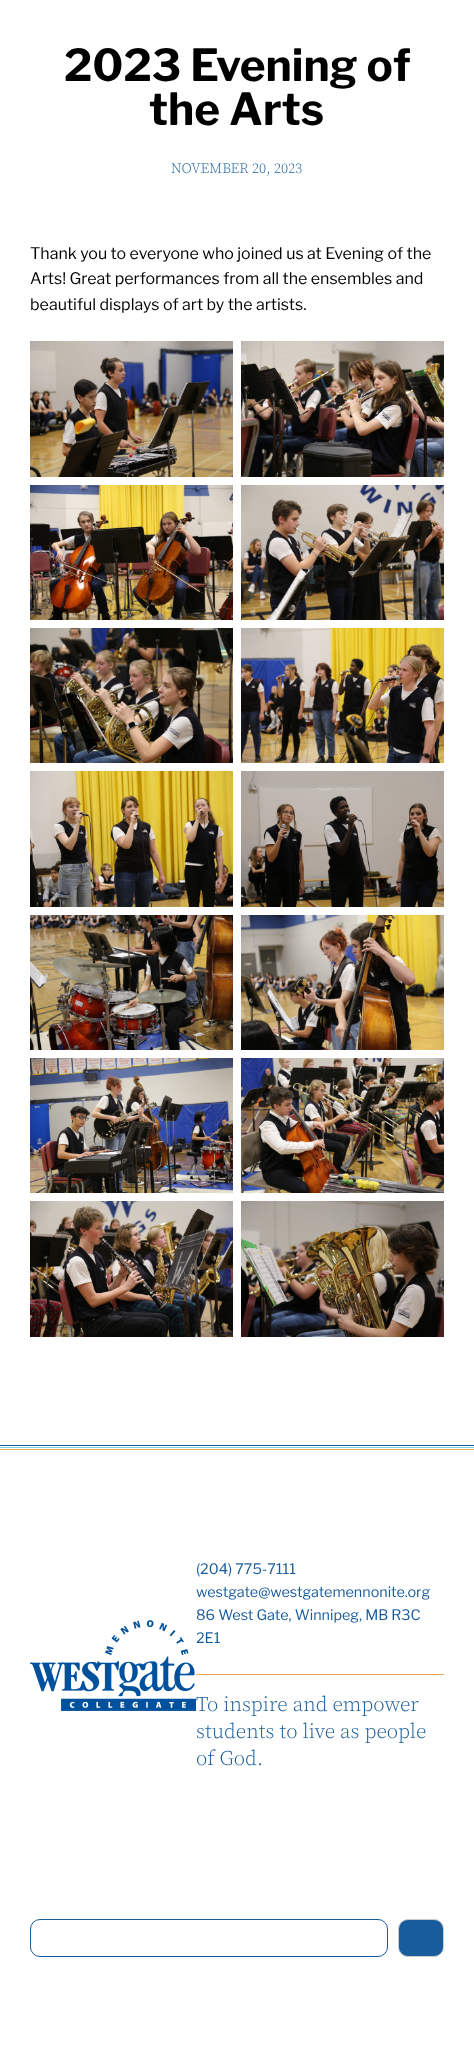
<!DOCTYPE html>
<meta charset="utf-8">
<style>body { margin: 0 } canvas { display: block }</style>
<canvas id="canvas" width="474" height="2065"></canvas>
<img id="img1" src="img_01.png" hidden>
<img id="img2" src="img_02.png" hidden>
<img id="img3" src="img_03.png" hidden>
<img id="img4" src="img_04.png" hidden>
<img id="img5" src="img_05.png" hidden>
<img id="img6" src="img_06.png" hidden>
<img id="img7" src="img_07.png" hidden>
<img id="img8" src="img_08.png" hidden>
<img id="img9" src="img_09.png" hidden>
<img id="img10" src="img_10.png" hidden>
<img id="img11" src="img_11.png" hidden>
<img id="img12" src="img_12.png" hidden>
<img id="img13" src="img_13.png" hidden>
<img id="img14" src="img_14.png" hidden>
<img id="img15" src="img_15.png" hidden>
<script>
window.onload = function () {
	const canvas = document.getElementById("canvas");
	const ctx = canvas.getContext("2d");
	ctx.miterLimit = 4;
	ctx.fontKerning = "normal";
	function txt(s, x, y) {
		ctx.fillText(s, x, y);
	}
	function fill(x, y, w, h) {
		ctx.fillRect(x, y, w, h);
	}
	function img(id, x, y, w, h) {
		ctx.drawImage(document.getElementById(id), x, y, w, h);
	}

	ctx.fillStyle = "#FFFFFF";
	fill(0, 0, 474, 2065);
	img("img1", 30, 341, 203, 136);
	img("img2", 241, 341, 203, 136);
	img("img3", 30, 485, 203, 135);
	img("img4", 241, 485, 203, 135);
	img("img5", 30, 628, 203, 135);
	img("img6", 241, 628, 203, 135);
	img("img7", 30, 771, 203, 136);
	img("img8", 241, 771, 203, 136);
	img("img9", 30, 915, 203, 135);
	img("img10", 241, 915, 203, 135);
	img("img11", 30, 1058, 203, 135);
	img("img12", 241, 1058, 203, 135);
	img("img13", 30, 1201, 203, 136);
	img("img14", 241, 1201, 203, 136);
	ctx.fillStyle = "#195C9B";
	fill(0, 1445, 474, 1);
	ctx.fillStyle = "#84D2E4";
	fill(0, 1447, 474, 1);
	ctx.fillStyle = "#E8AB55";
	fill(0, 1449, 474, 1);
	img("img15", 30, 1620, 166, 91);
	fill(196, 1674, 248, 1);
	ctx.beginPath();
	ctx.roundRect(30.5, 1919.5, 357, 37, 9.5);
	ctx.strokeStyle = "#195C9B";
	ctx.stroke();
	ctx.fillStyle = "#195C9B";
	ctx.beginPath();
	ctx.roundRect(398.5, 1919.5, 45, 37, 9.5);
	ctx.fill();
	ctx.strokeStyle = "#CCCCCC";
	ctx.stroke();
	ctx.font = "bold 44px Libre Franklin";
	ctx.fillStyle = "#000000";
	txt("2023 Evening of", 64, 81);
	txt("the Arts", 149, 125);
	ctx.font = "300 14.4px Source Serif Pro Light";
	ctx.fillStyle = "#195C9B";
	txt("NOVEMBER 20, 2023", 171, 173);
	ctx.font = "16px Libre Franklin";
	ctx.fillStyle = "#000000";
	txt("Thank you to everyone who joined us at Evening of the", 30, 259);
	txt("Arts! Great performances from all the ensembles and", 30, 284);
	txt("beautiful displays of art by the artists.", 30, 310);
	ctx.font = "14.4px Libre Franklin";
	ctx.fillStyle = "#195C9B";
	txt("(204) 775-7111", 196, 1574);
	txt("westgate@westgatemennonite.org", 196, 1597);
	txt("86 West Gate, Winnipeg, MB R3C", 196, 1620);
	txt("2E1", 196, 1643);
	ctx.font = "300 20.75px Source Serif Pro Light";
	txt("To inspire and empower", 196, 1711);
	txt("students to live as people", 196, 1738);
	txt("of God.", 196, 1765);
};
</script>
